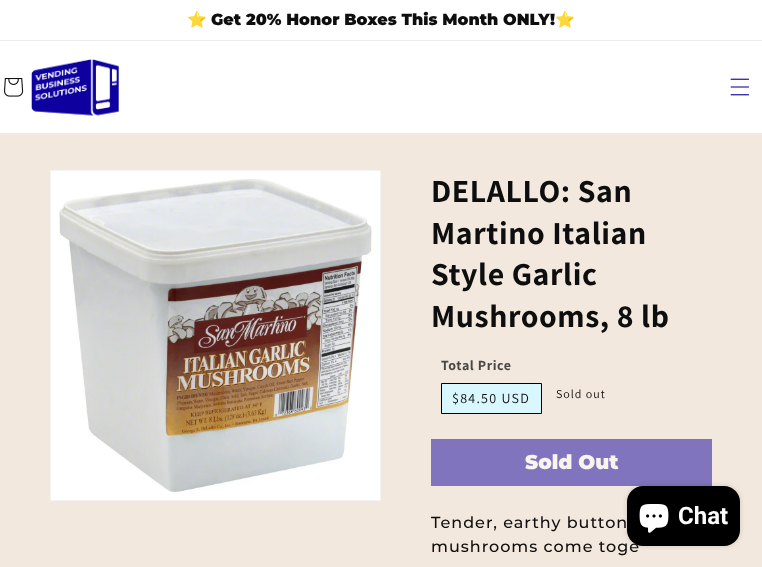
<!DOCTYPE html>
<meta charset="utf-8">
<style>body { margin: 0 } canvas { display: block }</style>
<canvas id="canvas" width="762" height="567"></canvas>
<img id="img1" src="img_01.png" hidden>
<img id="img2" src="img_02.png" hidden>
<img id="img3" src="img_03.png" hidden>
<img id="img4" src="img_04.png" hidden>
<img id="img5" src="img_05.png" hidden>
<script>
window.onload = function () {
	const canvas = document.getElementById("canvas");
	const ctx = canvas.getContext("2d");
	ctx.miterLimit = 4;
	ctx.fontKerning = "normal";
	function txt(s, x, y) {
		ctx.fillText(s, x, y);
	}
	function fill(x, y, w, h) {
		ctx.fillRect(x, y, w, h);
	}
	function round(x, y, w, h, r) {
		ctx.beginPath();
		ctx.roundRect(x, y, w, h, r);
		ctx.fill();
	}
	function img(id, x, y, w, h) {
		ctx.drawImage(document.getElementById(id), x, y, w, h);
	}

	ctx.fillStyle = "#FFFFFF";
	fill(0, 0, 762, 567);
	ctx.fillStyle = "#ECECEC";
	fill(0, 40, 762, 1);
	fill(0, 133, 762, 1);
	img("img1", 4, 78, 20, 19);
	img("img2", 31, 59, 88, 57);
	img("img3", 730, 78, 20, 18);
	ctx.fillStyle = "#F2E8DD";
	fill(0, 134, 762, 433);
	ctx.fillStyle = "#FFFFFF";
	ctx.beginPath();
	ctx.rect(50.5, 170.5, 330, 330);
	ctx.fill();
	ctx.strokeStyle = "#F3F3F3";
	ctx.stroke();
	img("img4", 57, 178, 315, 314);
	ctx.fillStyle = "#D8F7FF";
	ctx.beginPath();
	ctx.rect(441.5, 383.5, 100, 30);
	ctx.fill();
	ctx.strokeStyle = "#000000";
	ctx.stroke();
	ctx.fillStyle = "#8074BE";
	fill(431, 439, 281, 47);
	ctx.fillStyle = "rgba(0, 0, 0, 0.15)";
	ctx.filter = "blur(2.5px)";
	ctx.beginPath();
	ctx.roundRect(627, 486, 113, 60, 16);
	ctx.fill();
	ctx.filter = "none";
	ctx.font = "bold 16px Noto Color Emoji";
	ctx.fillStyle = "#0E0E0E";
	txt("⭐", 187, 25);
	ctx.font = "900 16px Montserrat";
	txt("Get 20% Honor Boxes This Month ONLY!", 211, 25);
	ctx.font = "bold 16px Noto Color Emoji";
	txt("⭐", 555, 25);
	ctx.letterSpacing = "0.6px";
	ctx.font = "bold 32px Assistant";
	txt("DELALLO: San", 431, 202);
	txt("Martino Italian", 431, 244);
	txt("Style Garlic", 431, 285);
	txt("Mushrooms, 8 lb", 431, 327);
	ctx.font = "bold 14px Assistant";
	ctx.fillStyle = "#4A4845";
	txt("Total Price", 441, 370);
	ctx.letterSpacing = "1.25px";
	ctx.font = "14px Assistant";
	ctx.fillStyle = "#0E0E0E";
	txt("$84.50 USD", 452, 403);
	ctx.letterSpacing = "1px";
	ctx.font = "12px Assistant";
	txt("Sold out", 556, 398);
	ctx.letterSpacing = "0px";
	ctx.font = "900 20px Montserrat";
	ctx.fillStyle = "#F9F4EE";
	txt("Sold Out", 525, 469);
	ctx.letterSpacing = "1px";
	ctx.font = "500 16px Montserrat";
	ctx.fillStyle = "#0E0E0E";
	txt("Tender, earthy button", 431, 528);
	txt("mushrooms come toge", 431, 552);
	ctx.fillStyle = "#000000";
	round(627, 486, 113, 60, 16);
	img("img5", 639, 504, 30, 29);
	ctx.letterSpacing = "0px";
	ctx.font = "bold 24px Roboto";
	ctx.fillStyle = "#FFFFFF";
	txt("Chat", 678, 524);
};
</script>
